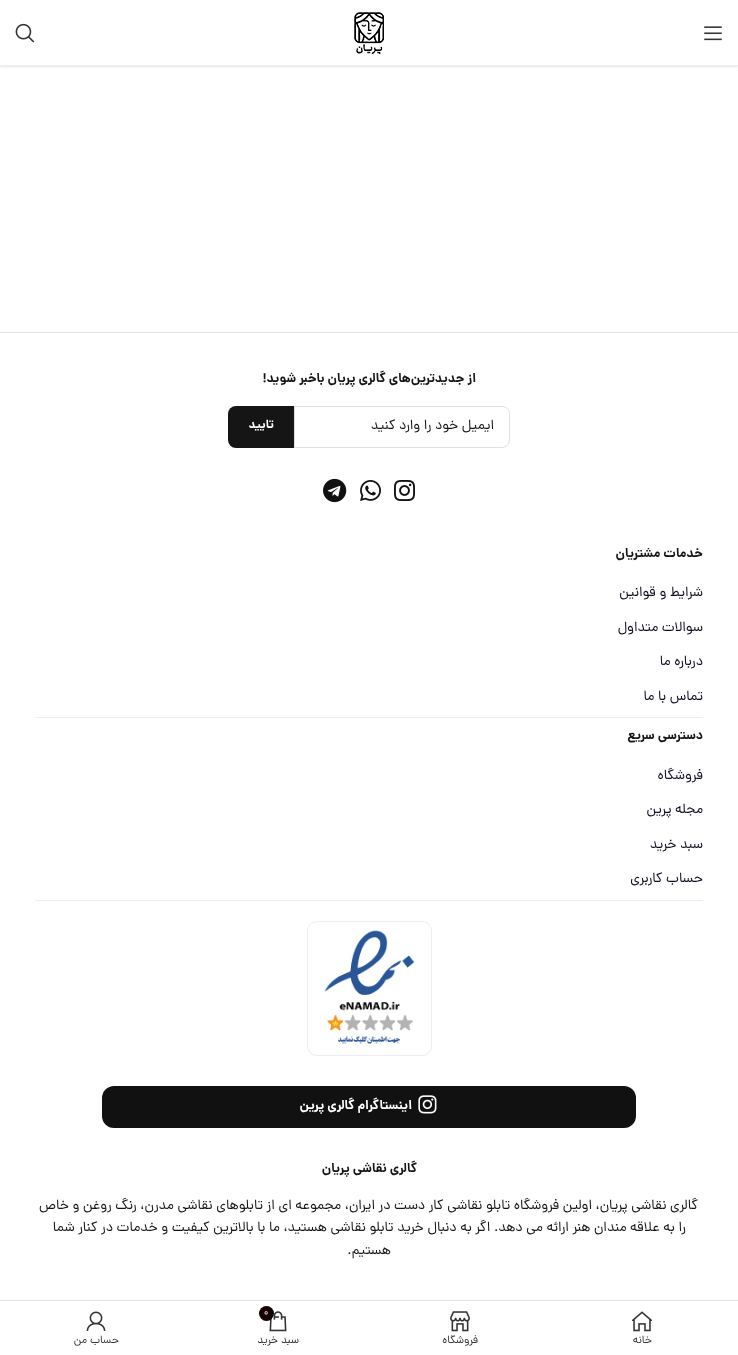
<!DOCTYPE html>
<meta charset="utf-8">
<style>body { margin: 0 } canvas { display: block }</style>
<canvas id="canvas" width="738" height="1355"></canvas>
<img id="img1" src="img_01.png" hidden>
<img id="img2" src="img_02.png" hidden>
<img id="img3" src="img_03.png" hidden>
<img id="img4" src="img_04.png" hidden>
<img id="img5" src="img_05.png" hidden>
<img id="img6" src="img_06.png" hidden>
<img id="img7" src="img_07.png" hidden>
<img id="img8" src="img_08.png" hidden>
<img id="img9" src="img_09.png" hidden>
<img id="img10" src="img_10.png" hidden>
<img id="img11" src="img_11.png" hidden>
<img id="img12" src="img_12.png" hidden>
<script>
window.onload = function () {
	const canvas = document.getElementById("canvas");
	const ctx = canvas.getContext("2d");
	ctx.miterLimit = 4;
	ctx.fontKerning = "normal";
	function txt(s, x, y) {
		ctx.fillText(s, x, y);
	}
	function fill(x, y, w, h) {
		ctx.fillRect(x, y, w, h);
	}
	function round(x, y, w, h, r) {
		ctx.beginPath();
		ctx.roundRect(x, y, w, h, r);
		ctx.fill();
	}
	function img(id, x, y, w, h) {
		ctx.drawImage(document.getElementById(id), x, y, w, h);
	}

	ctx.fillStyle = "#FFFFFF";
	fill(0, 0, 738, 1355);
	ctx.save();
	ctx.beginPath();
	ctx.rect(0, 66, 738, 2);
	ctx.clip();
	ctx.fillStyle = "rgba(0, 0, 0, 0.1)";
	ctx.filter = "blur(1.5px)";
	ctx.beginPath();
	ctx.rect(0, 1, 738, 66);
	ctx.fill();
	ctx.filter = "none";
	ctx.restore();
	ctx.fillStyle = "#EDEDED";
	fill(0, 65, 738, 1);
	img("img1", 704, 26, 18, 15);
	img("img2", 354, 12, 30, 42);
	img("img3", 15, 23, 20, 20);
	ctx.fillStyle = "#E0E0E0";
	fill(0, 332, 738, 1);
	ctx.beginPath();
	ctx.roundRect(294.5, 406.5, 215, 41, [0, 7.5, 7.5, 0]);
	ctx.strokeStyle = "#E0E0E0";
	ctx.stroke();
	ctx.fillStyle = "#151515";
	ctx.beginPath();
	ctx.roundRect(228, 406, 66, 42, [8, 0, 0, 8]);
	ctx.fill();
	img("img4", 394, 480, 21, 21);
	img("img5", 360, 480, 21, 21);
	img("img6", 323, 478, 24, 25);
	ctx.fillStyle = "#EEEEEE";
	fill(35, 717, 668, 1);
	fill(35, 900, 668, 1);
	ctx.beginPath();
	ctx.roundRect(307.5, 921.5, 124, 134, 9.5);
	ctx.strokeStyle = "#EEEEEE";
	ctx.stroke();
	img("img7", 324, 930, 91, 114);
	ctx.fillStyle = "#111111";
	round(102, 1086, 534, 42, 12);
	img("img8", 418, 1095, 19, 19);
	ctx.fillStyle = "#E0E0E0";
	fill(0, 1300, 738, 1);
	img("img9", 632, 1311, 20, 21);
	img("img10", 450, 1311, 20, 21);
	img("img11", 269, 1311, 18, 21);
	ctx.fillStyle = "#140000";
	ctx.beginPath();
	ctx.arc(266.5, 1313.5, 7.5, 0, Math.PI * 2);
	ctx.fill();
	img("img12", 86, 1311, 20, 20);
	ctx.direction = "rtl";
	ctx.font = "bold 13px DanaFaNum";
	ctx.fillStyle = "#151515";
	txt("از جدیدترین‌های گالری پریان باخبر شوید!", 476, 382);
	ctx.font = "14px DanaFaNum";
	txt("ایمیل خود را وارد کنید", 494, 429);
	ctx.font = "bold 12px DanaFaNum";
	ctx.fillStyle = "#FFFFFF";
	txt("تایید", 274, 428);
	ctx.font = "bold 13px DanaFaNum";
	ctx.fillStyle = "#151515";
	txt("خدمات مشتریان", 703, 557);
	ctx.font = "14px DanaFaNum";
	ctx.fillStyle = "#0D0C22";
	txt("شرایط و قوانین", 703, 596);
	txt("سوالات متداول", 703, 631);
	txt("درباره ما", 703, 665);
	txt("تماس با ما", 703, 700);
	ctx.font = "bold 13px DanaFaNum";
	ctx.fillStyle = "#151515";
	txt("دسترسی سریع", 703, 739);
	ctx.font = "14px DanaFaNum";
	ctx.fillStyle = "#0D0C22";
	txt("فروشگاه", 703, 779);
	txt("مجله پرین", 703, 813);
	txt("سبد خرید", 703, 848);
	txt("حساب کاربری", 703, 882);
	ctx.font = "bold 13px DanaFaNum";
	ctx.fillStyle = "#FFFFFF";
	txt("اینستاگرام گالری پرین", 412, 1109);
	ctx.fillStyle = "#151515";
	txt("گالری نقاشی پریان", 417, 1172);
	ctx.font = "14px DanaFaNum";
	txt("گالری نقاشی پریان، اولین فروشگاه تابلو نقاشی کار دست در ایران، مجموعه‌ ای از تابلوهای نقاشی مدرن، رنگ روغن و خاص", 698, 1209);
	txt("را به علاقه‌ مندان هنر ارائه می‌ دهد. اگر به دنبال خرید تابلو نقاشی هستید، ما با بالاترین کیفیت و خدمات در کنار شما", 686, 1231);
	txt("هستیم.", 391, 1254);
	ctx.font = "11px DanaFaNum";
	ctx.fillStyle = "#333333";
	txt("خانه", 652, 1343);
	ctx.save();
	ctx.beginPath();
	ctx.rect(379, 1335, 162, 13);
	ctx.clip();
	txt("فروشگاه", 478, 1343);
	ctx.restore();
	ctx.direction = "ltr";
	ctx.font = "9px DanaFaNum";
	ctx.fillStyle = "#FFFFFF";
	txt("0", 264, 1315);
	ctx.direction = "rtl";
	ctx.font = "11px DanaFaNum";
	ctx.fillStyle = "#333333";
	txt("سبد خرید", 299, 1343);
	txt("حساب من", 119, 1343);
};
</script>
